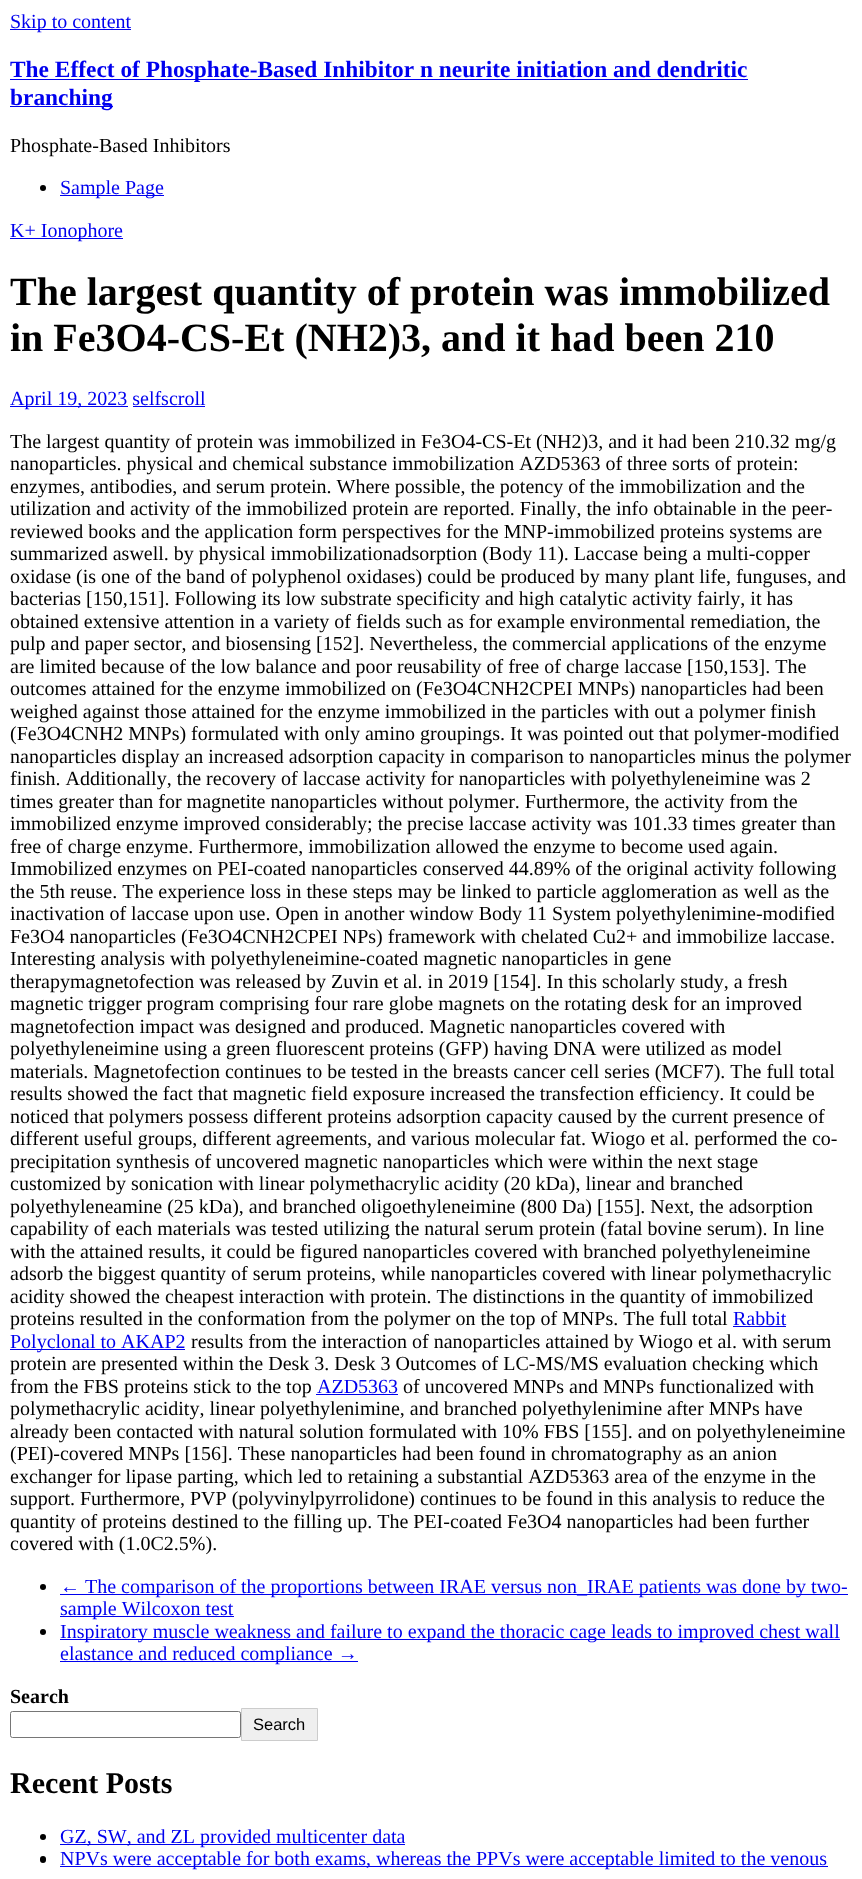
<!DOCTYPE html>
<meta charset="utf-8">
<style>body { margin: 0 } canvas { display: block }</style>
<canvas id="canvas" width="862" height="1879"></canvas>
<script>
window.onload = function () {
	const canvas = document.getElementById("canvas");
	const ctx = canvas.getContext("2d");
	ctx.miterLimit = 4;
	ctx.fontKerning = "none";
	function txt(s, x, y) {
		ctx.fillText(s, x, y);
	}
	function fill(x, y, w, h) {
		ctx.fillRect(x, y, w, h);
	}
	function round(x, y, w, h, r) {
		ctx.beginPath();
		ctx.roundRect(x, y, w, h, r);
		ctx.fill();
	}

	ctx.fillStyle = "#FFFFFF";
	fill(0, 0, 862, 1879);
	ctx.fillStyle = "#0000EE";
	fill(10, 29, 121, 1);
	fill(10, 79, 738, 1);
	fill(10, 106, 103, 1);
	ctx.fillStyle = "#000000";
	ctx.beginPath();
	ctx.arc(43, 188, 3, 0, Math.PI * 2);
	ctx.fill();
	ctx.fillStyle = "#0000EE";
	fill(60, 195, 104, 1);
	fill(10, 238, 113, 1);
	fill(10, 406, 118, 1);
	fill(133, 406, 72, 1);
	fill(733, 1326, 53, 1);
	fill(10, 1349, 175, 1);
	fill(316, 1394, 82, 1);
	ctx.fillStyle = "#000000";
	ctx.beginPath();
	ctx.arc(43, 1587, 3, 0, Math.PI * 2);
	ctx.fill();
	ctx.fillStyle = "#0000EE";
	fill(60, 1594, 788, 1);
	fill(60, 1616, 174, 1);
	ctx.fillStyle = "#000000";
	ctx.beginPath();
	ctx.arc(43, 1632, 3, 0, Math.PI * 2);
	ctx.fill();
	ctx.fillStyle = "#0000EE";
	fill(60, 1639, 780, 1);
	fill(60, 1661, 298, 1);
	ctx.beginPath();
	ctx.roundRect(10.5, 1711.5, 230, 26, 2);
	ctx.strokeStyle = "#767676";
	ctx.stroke();
	ctx.fillStyle = "#EFEFEF";
	ctx.beginPath();
	ctx.rect(241.5, 1708.5, 76, 32);
	ctx.fill();
	ctx.strokeStyle = "#CCCCCC";
	ctx.stroke();
	ctx.fillStyle = "#000000";
	ctx.beginPath();
	ctx.arc(43, 1837, 3, 0, Math.PI * 2);
	ctx.fill();
	ctx.fillStyle = "#0000EE";
	fill(60, 1844, 345, 1);
	ctx.fillStyle = "#000000";
	round(40, 1856, 6, 7, 3);
	ctx.fillStyle = "#0000EE";
	fill(60, 1866, 768, 1);
	ctx.font = "20px Liberation Serif";
	txt("Skip to content", 10, 28);
	ctx.font = "bold 23.4px Liberation Serif";
	txt("The Effect of Phosphate-Based Inhibitor n neurite initiation and dendritic", 10, 77);
	txt("branching", 10, 105);
	ctx.font = "20px Liberation Serif";
	ctx.fillStyle = "#000000";
	txt("Phosphate-Based Inhibitors", 10, 152);
	ctx.fillStyle = "#0000EE";
	txt("Sample Page", 60, 194);
	txt("K+ Ionophore", 10, 237);
	ctx.font = "bold 40px Liberation Serif";
	ctx.fillStyle = "#000000";
	txt("The largest quantity of protein was immobilized", 10, 305);
	txt("in Fe3O4-CS-Et (NH2)3, and it had been 210", 10, 351);
	ctx.font = "20px Liberation Serif";
	ctx.fillStyle = "#0000EE";
	txt("April 19, 2023 selfscroll", 10, 405);
	ctx.fillStyle = "#000000";
	txt("The largest quantity of protein was immobilized in Fe3O4-CS-Et (NH2)3, and it had been 210.32 mg/g", 10, 448);
	txt("nanoparticles. physical and chemical substance immobilization AZD5363 of three sorts of protein:", 10, 470);
	txt("enzymes, antibodies, and serum protein. Where possible, the potency of the immobilization and the", 10, 493);
	txt("utilization and activity of the immobilized protein are reported. Finally, the info obtainable in the peer-", 10, 515);
	txt("reviewed books and the application form perspectives for the MNP-immobilized proteins systems are", 10, 538);
	txt("summarized aswell. by physical immobilizationadsorption (Body 11). Laccase being a multi-copper", 10, 560);
	txt("oxidase (is one of the band of polyphenol oxidases) could be produced by many plant life, funguses, and", 10, 583);
	txt("bacterias [150,151]. Following its low substrate specificity and high catalytic activity fairly, it has", 10, 605);
	txt("obtained extensive attention in a variety of fields such as for example environmental remediation, the", 10, 628);
	txt("pulp and paper sector, and biosensing [152]. Nevertheless, the commercial applications of the enzyme", 10, 650);
	txt("are limited because of the low balance and poor reusability of free of charge laccase [150,153]. The", 10, 673);
	txt("outcomes attained for the enzyme immobilized on (Fe3O4CNH2CPEI MNPs) nanoparticles had been", 10, 695);
	txt("weighed against those attained for the enzyme immobilized in the particles with out a polymer finish", 10, 718);
	txt("(Fe3O4CNH2 MNPs) formulated with only amino groupings. It was pointed out that polymer-modified", 10, 740);
	txt("nanoparticles display an increased adsorption capacity in comparison to nanoparticles minus the polymer", 10, 763);
	txt("finish. Additionally, the recovery of laccase activity for nanoparticles with polyethyleneimine was 2", 10, 785);
	txt("times greater than for magnetite nanoparticles without polymer. Furthermore, the activity from the", 10, 808);
	txt("immobilized enzyme improved considerably; the precise laccase activity was 101.33 times greater than", 10, 830);
	txt("free of charge enzyme. Furthermore, immobilization allowed the enzyme to become used again.", 10, 853);
	txt("Immobilized enzymes on PEI-coated nanoparticles conserved 44.89% of the original activity following", 10, 875);
	txt("the 5th reuse. The experience loss in these steps may be linked to particle agglomeration as well as the", 10, 898);
	txt("inactivation of laccase upon use. Open in another window Body 11 System polyethylenimine-modified", 10, 920);
	txt("Fe3O4 nanoparticles (Fe3O4CNH2CPEI NPs) framework with chelated Cu2+ and immobilize laccase.", 10, 943);
	txt("Interesting analysis with polyethyleneimine-coated magnetic nanoparticles in gene", 10, 965);
	txt("therapymagnetofection was released by Zuvin et al. in 2019 [154]. In this scholarly study, a fresh", 10, 988);
	txt("magnetic trigger program comprising four rare globe magnets on the rotating desk for an improved", 10, 1010);
	txt("magnetofection impact was designed and produced. Magnetic nanoparticles covered with", 10, 1033);
	txt("polyethyleneimine using a green fluorescent proteins (GFP) having DNA were utilized as model", 10, 1055);
	txt("materials. Magnetofection continues to be tested in the breasts cancer cell series (MCF7). The full total", 10, 1078);
	txt("results showed the fact that magnetic field exposure increased the transfection efficiency. It could be", 10, 1100);
	txt("noticed that polymers possess different proteins adsorption capacity caused by the current presence of", 10, 1123);
	txt("different useful groups, different agreements, and various molecular fat. Wiogo et al. performed the co-", 10, 1145);
	txt("precipitation synthesis of uncovered magnetic nanoparticles which were within the next stage", 10, 1168);
	txt("customized by sonication with linear polymethacrylic acidity (20 kDa), linear and branched", 10, 1190);
	txt("polyethyleneamine (25 kDa), and branched oligoethyleneimine (800 Da) [155]. Next, the adsorption", 10, 1213);
	txt("capability of each materials was tested utilizing the natural serum protein (fatal bovine serum). In line", 10, 1235);
	txt("with the attained results, it could be figured nanoparticles covered with branched polyethyleneimine", 10, 1258);
	txt("adsorb the biggest quantity of serum proteins, while nanoparticles covered with linear polymethacrylic", 10, 1280);
	txt("acidity showed the cheapest interaction with protein. The distinctions in the quantity of immobilized", 10, 1303);
	txt("proteins resulted in the conformation from the polymer on the top of MNPs. The full total", 10, 1325);
	ctx.fillStyle = "#0000EE";
	txt("Rabbit", 733, 1325);
	txt("Polyclonal to AKAP2", 10, 1348);
	ctx.fillStyle = "#000000";
	txt("results from the interaction of nanoparticles attained by Wiogo et al. with serum", 191, 1348);
	txt("protein are presented within the Desk 3. Desk 3 Outcomes of LC-MS/MS evaluation checking which", 10, 1370);
	txt("from the FBS proteins stick to the top", 10, 1393);
	ctx.fillStyle = "#0000EE";
	txt("AZD5363", 317, 1393);
	ctx.fillStyle = "#000000";
	txt("of uncovered MNPs and MNPs functionalized with", 403, 1393);
	txt("polymethacrylic acidity, linear polyethylenimine, and branched polyethylenimine after MNPs have", 10, 1415);
	txt("already been contacted with natural solution formulated with 10% FBS [155]. and on polyethyleneimine", 10, 1438);
	txt("(PEI)-covered MNPs [156]. These nanoparticles had been found in chromatography as an anion", 10, 1460);
	txt("exchanger for lipase parting, which led to retaining a substantial AZD5363 area of the enzyme in the", 10, 1483);
	txt("support. Furthermore, PVP (polyvinylpyrrolidone) continues to be found in this analysis to reduce the", 10, 1505);
	txt("quantity of proteins destined to the filling up. The PEI-coated Fe3O4 nanoparticles had been further", 10, 1528);
	txt("covered with (1.0C2.5%).", 10, 1550);
	ctx.fillStyle = "#0000EE";
	txt("← The comparison of the proportions between IRAE versus non_IRAE patients was done by two-", 60, 1593);
	txt("sample Wilcoxon test", 60, 1615);
	txt("Inspiratory muscle weakness and failure to expand the thoracic cage leads to improved chest wall", 60, 1638);
	txt("elastance and reduced compliance →", 60, 1660);
	ctx.font = "bold 20px Liberation Serif";
	ctx.fillStyle = "#000000";
	txt("Search", 10, 1703);
	ctx.font = "16.5px Liberation Sans";
	txt("Search", 253, 1730);
	ctx.font = "bold 30px Liberation Serif";
	txt("Recent Posts", 10, 1793);
	ctx.font = "20px Liberation Serif";
	ctx.fillStyle = "#0000EE";
	txt("GZ, SW, and ZL provided multicenter data", 60, 1843);
	txt("NPVs were acceptable for both exams, whereas the PPVs were acceptable limited to the venous", 60, 1865);
};
</script>
